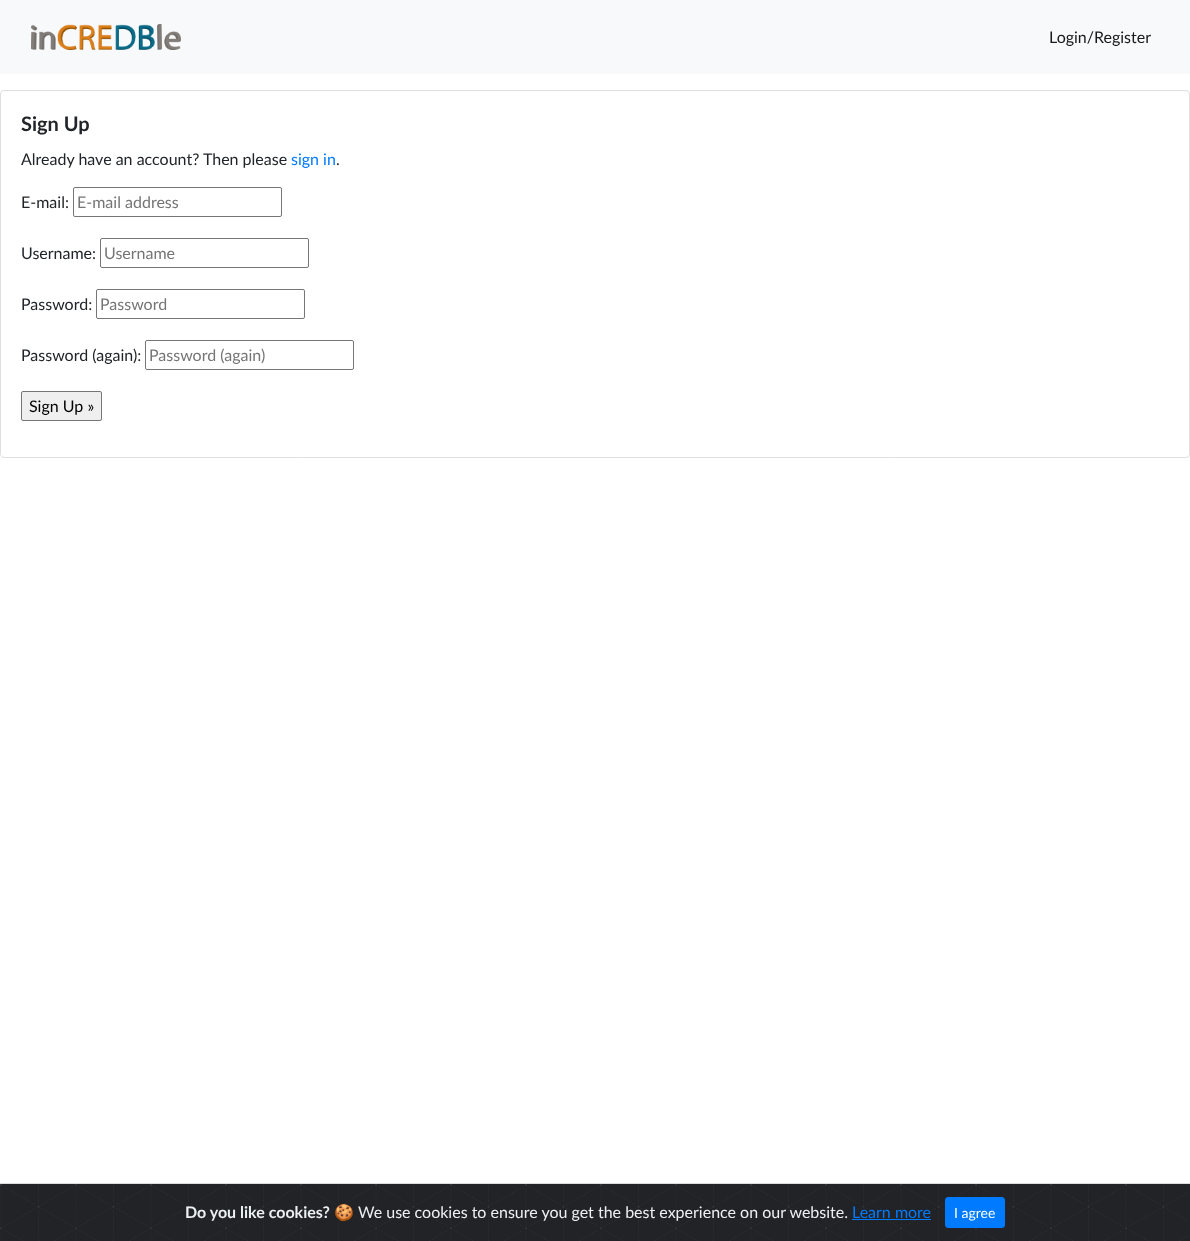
<!DOCTYPE html>
<meta charset="utf-8">
<style>body { margin: 0 } canvas { display: block }</style>
<canvas id="canvas" width="1190" height="1241"></canvas>
<img id="img1" src="img_01.png" hidden>
<img id="img2" src="img_02.png" hidden>
<script>
window.onload = function () {
	const canvas = document.getElementById("canvas");
	const ctx = canvas.getContext("2d");
	ctx.miterLimit = 4;
	ctx.fontKerning = "normal";
	function txt(s, x, y) {
		ctx.fillText(s, x, y);
	}
	function fill(x, y, w, h) {
		ctx.fillRect(x, y, w, h);
	}
	function img(id, x, y, w, h) {
		ctx.drawImage(document.getElementById(id), x, y, w, h);
	}

	ctx.fillStyle = "#FFFFFF";
	fill(0, 0, 1190, 1241);
	ctx.fillStyle = "#F8F9FA";
	fill(0, 0, 1190, 74);
	img("img1", 31, 24, 150, 26);
	ctx.beginPath();
	ctx.roundRect(0.5, 90.5, 1189, 367, 3.5);
	ctx.strokeStyle = "#DFDFDF";
	ctx.stroke();
	ctx.beginPath();
	ctx.roundRect(73.5, 187.5, 208, 29, 1.5);
	ctx.strokeStyle = "#767676";
	ctx.stroke();
	ctx.beginPath();
	ctx.roundRect(100.5, 238.5, 208, 29, 1.5);
	ctx.stroke();
	ctx.beginPath();
	ctx.roundRect(96.5, 289.5, 208, 29, 1.5);
	ctx.stroke();
	ctx.beginPath();
	ctx.roundRect(145.5, 340.5, 208, 29, 1.5);
	ctx.stroke();
	ctx.fillStyle = "#EFEFEF";
	ctx.beginPath();
	ctx.roundRect(21.5, 391.5, 80, 29, 1.5);
	ctx.fill();
	ctx.stroke();
	ctx.fillStyle = "#DDDDDD";
	fill(0, 1183, 1190, 1);
	ctx.fillStyle = "#212327";
	fill(1188, 1184, 2, 57);
	img("img2", 0, 1184, 1188, 57);
	ctx.fillStyle = "#007BFF";
	fill(852, 1219, 79, 1);
	ctx.beginPath();
	ctx.roundRect(945.5, 1197.5, 59, 30, 2.5);
	ctx.fill();
	ctx.strokeStyle = "#007BFF";
	ctx.stroke();
	ctx.font = "16px Lato";
	ctx.fillStyle = "#191919";
	txt("Login/Register", 1049, 43);
	ctx.font = "bold 20px Lato";
	ctx.fillStyle = "#212529";
	txt("Sign Up", 21, 131);
	ctx.font = "16px Lato";
	txt("Already have an account? Then please", 21, 165);
	ctx.fillStyle = "#007BFF";
	txt("sign in", 291, 165);
	ctx.fillStyle = "#212529";
	txt(".", 336, 165);
	txt("E-mail:", 21, 208);
	ctx.fillStyle = "#757575";
	txt("E-mail address", 77, 208);
	ctx.fillStyle = "#212529";
	txt("Username:", 21, 259);
	ctx.fillStyle = "#757575";
	txt("Username", 104, 259);
	ctx.fillStyle = "#212529";
	txt("Password:", 21, 310);
	ctx.fillStyle = "#757575";
	txt("Password", 100, 310);
	ctx.fillStyle = "#212529";
	txt("Password (again):", 21, 361);
	ctx.fillStyle = "#757575";
	txt("Password (again)", 149, 361);
	ctx.fillStyle = "#000000";
	txt("Sign Up »", 29, 412);
	ctx.font = "bold 16px Lato";
	ctx.fillStyle = "#ECF0F1";
	txt("Do you like cookies?", 185, 1218);
	ctx.font = "16px Noto Color Emoji";
	txt("🍪", 334, 1218);
	ctx.font = "16px Lato";
	txt("We use cookies to ensure you get the best experience on our website.", 358, 1218);
	ctx.fillStyle = "#007BFF";
	txt("Learn more", 852, 1218);
	ctx.font = "14px Lato";
	ctx.fillStyle = "#FFFFFF";
	txt("I agree", 954, 1218);
};
</script>
